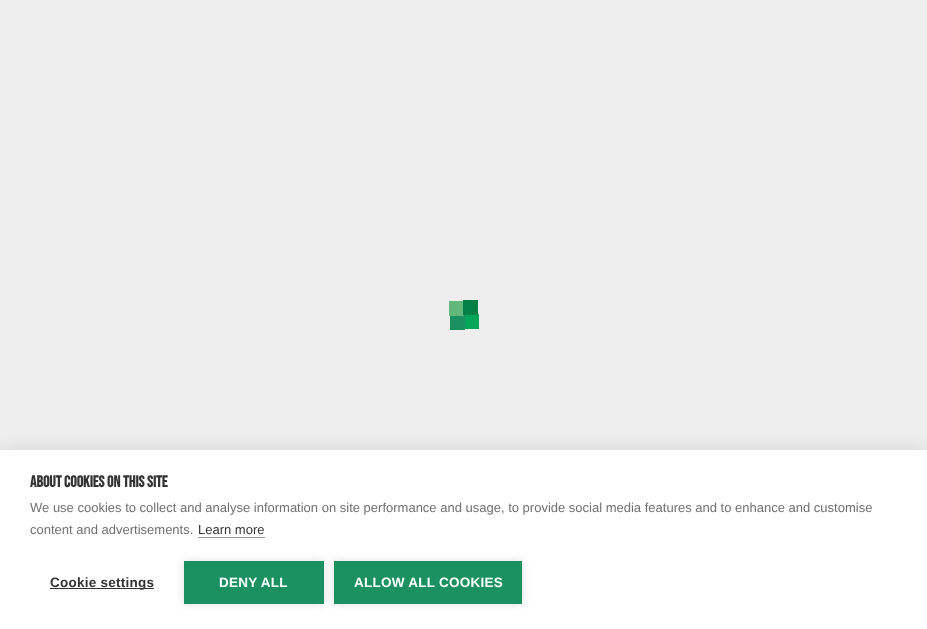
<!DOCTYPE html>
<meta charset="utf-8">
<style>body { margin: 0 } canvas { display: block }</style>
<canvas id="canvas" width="927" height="629"></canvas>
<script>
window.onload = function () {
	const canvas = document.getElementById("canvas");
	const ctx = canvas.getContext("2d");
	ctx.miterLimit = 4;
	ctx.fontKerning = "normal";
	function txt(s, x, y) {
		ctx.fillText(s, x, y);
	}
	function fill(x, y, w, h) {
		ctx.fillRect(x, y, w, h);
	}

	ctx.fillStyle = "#EEEEEE";
	fill(0, 0, 927, 629);
	ctx.fillStyle = "#1B9162";
	fill(450, 315, 15, 15);
	ctx.fillStyle = "#62B87B";
	fill(449, 301, 15, 15);
	ctx.fillStyle = "#02A65A";
	fill(465, 314, 14, 15);
	ctx.fillStyle = "#028045";
	fill(463, 300, 15, 15);
	ctx.fillStyle = "rgba(0, 0, 0, 0.1)";
	ctx.filter = "blur(10px)";
	ctx.beginPath();
	ctx.rect(0, 450, 927, 179);
	ctx.fill();
	ctx.filter = "none";
	ctx.fillStyle = "#FFFFFF";
	fill(0, 450, 927, 179);
	ctx.fillStyle = "#999999";
	fill(198, 537, 67, 1);
	ctx.fillStyle = "#333333";
	fill(50, 588, 104, 1);
	ctx.fillStyle = "rgba(0, 0, 0, 0.12)";
	ctx.filter = "blur(5px)";
	ctx.beginPath();
	ctx.rect(184, 561, 140, 43);
	ctx.fill();
	ctx.filter = "none";
	ctx.fillStyle = "#1B9162";
	fill(184, 561, 140, 43);
	ctx.fillStyle = "rgba(0, 0, 0, 0.12)";
	ctx.filter = "blur(5px)";
	ctx.beginPath();
	ctx.rect(334, 561, 188, 43);
	ctx.fill();
	ctx.filter = "none";
	ctx.fillStyle = "#1B9162";
	fill(334, 561, 188, 43);
	ctx.font = "bold 16px Bebas Neue";
	ctx.fillStyle = "#333333";
	txt("About cookies on this site", 30, 487);
	ctx.font = "13px Liberation Sans";
	ctx.fillStyle = "#707070";
	txt("We use cookies to collect and analyse information on site performance and usage, to provide social media features and to enhance and customise", 30, 512);
	txt("content and advertisements.", 30, 534);
	ctx.fillStyle = "#333333";
	txt("Learn more", 198, 534);
	ctx.letterSpacing = "0.25px";
	ctx.font = "bold 13.5px Liberation Sans";
	txt("Cookie settings", 50, 587);
	ctx.fillStyle = "#FFFFFF";
	txt("DENY ALL", 219, 587);
	txt("ALLOW ALL COOKIES", 354, 587);
};
</script>
